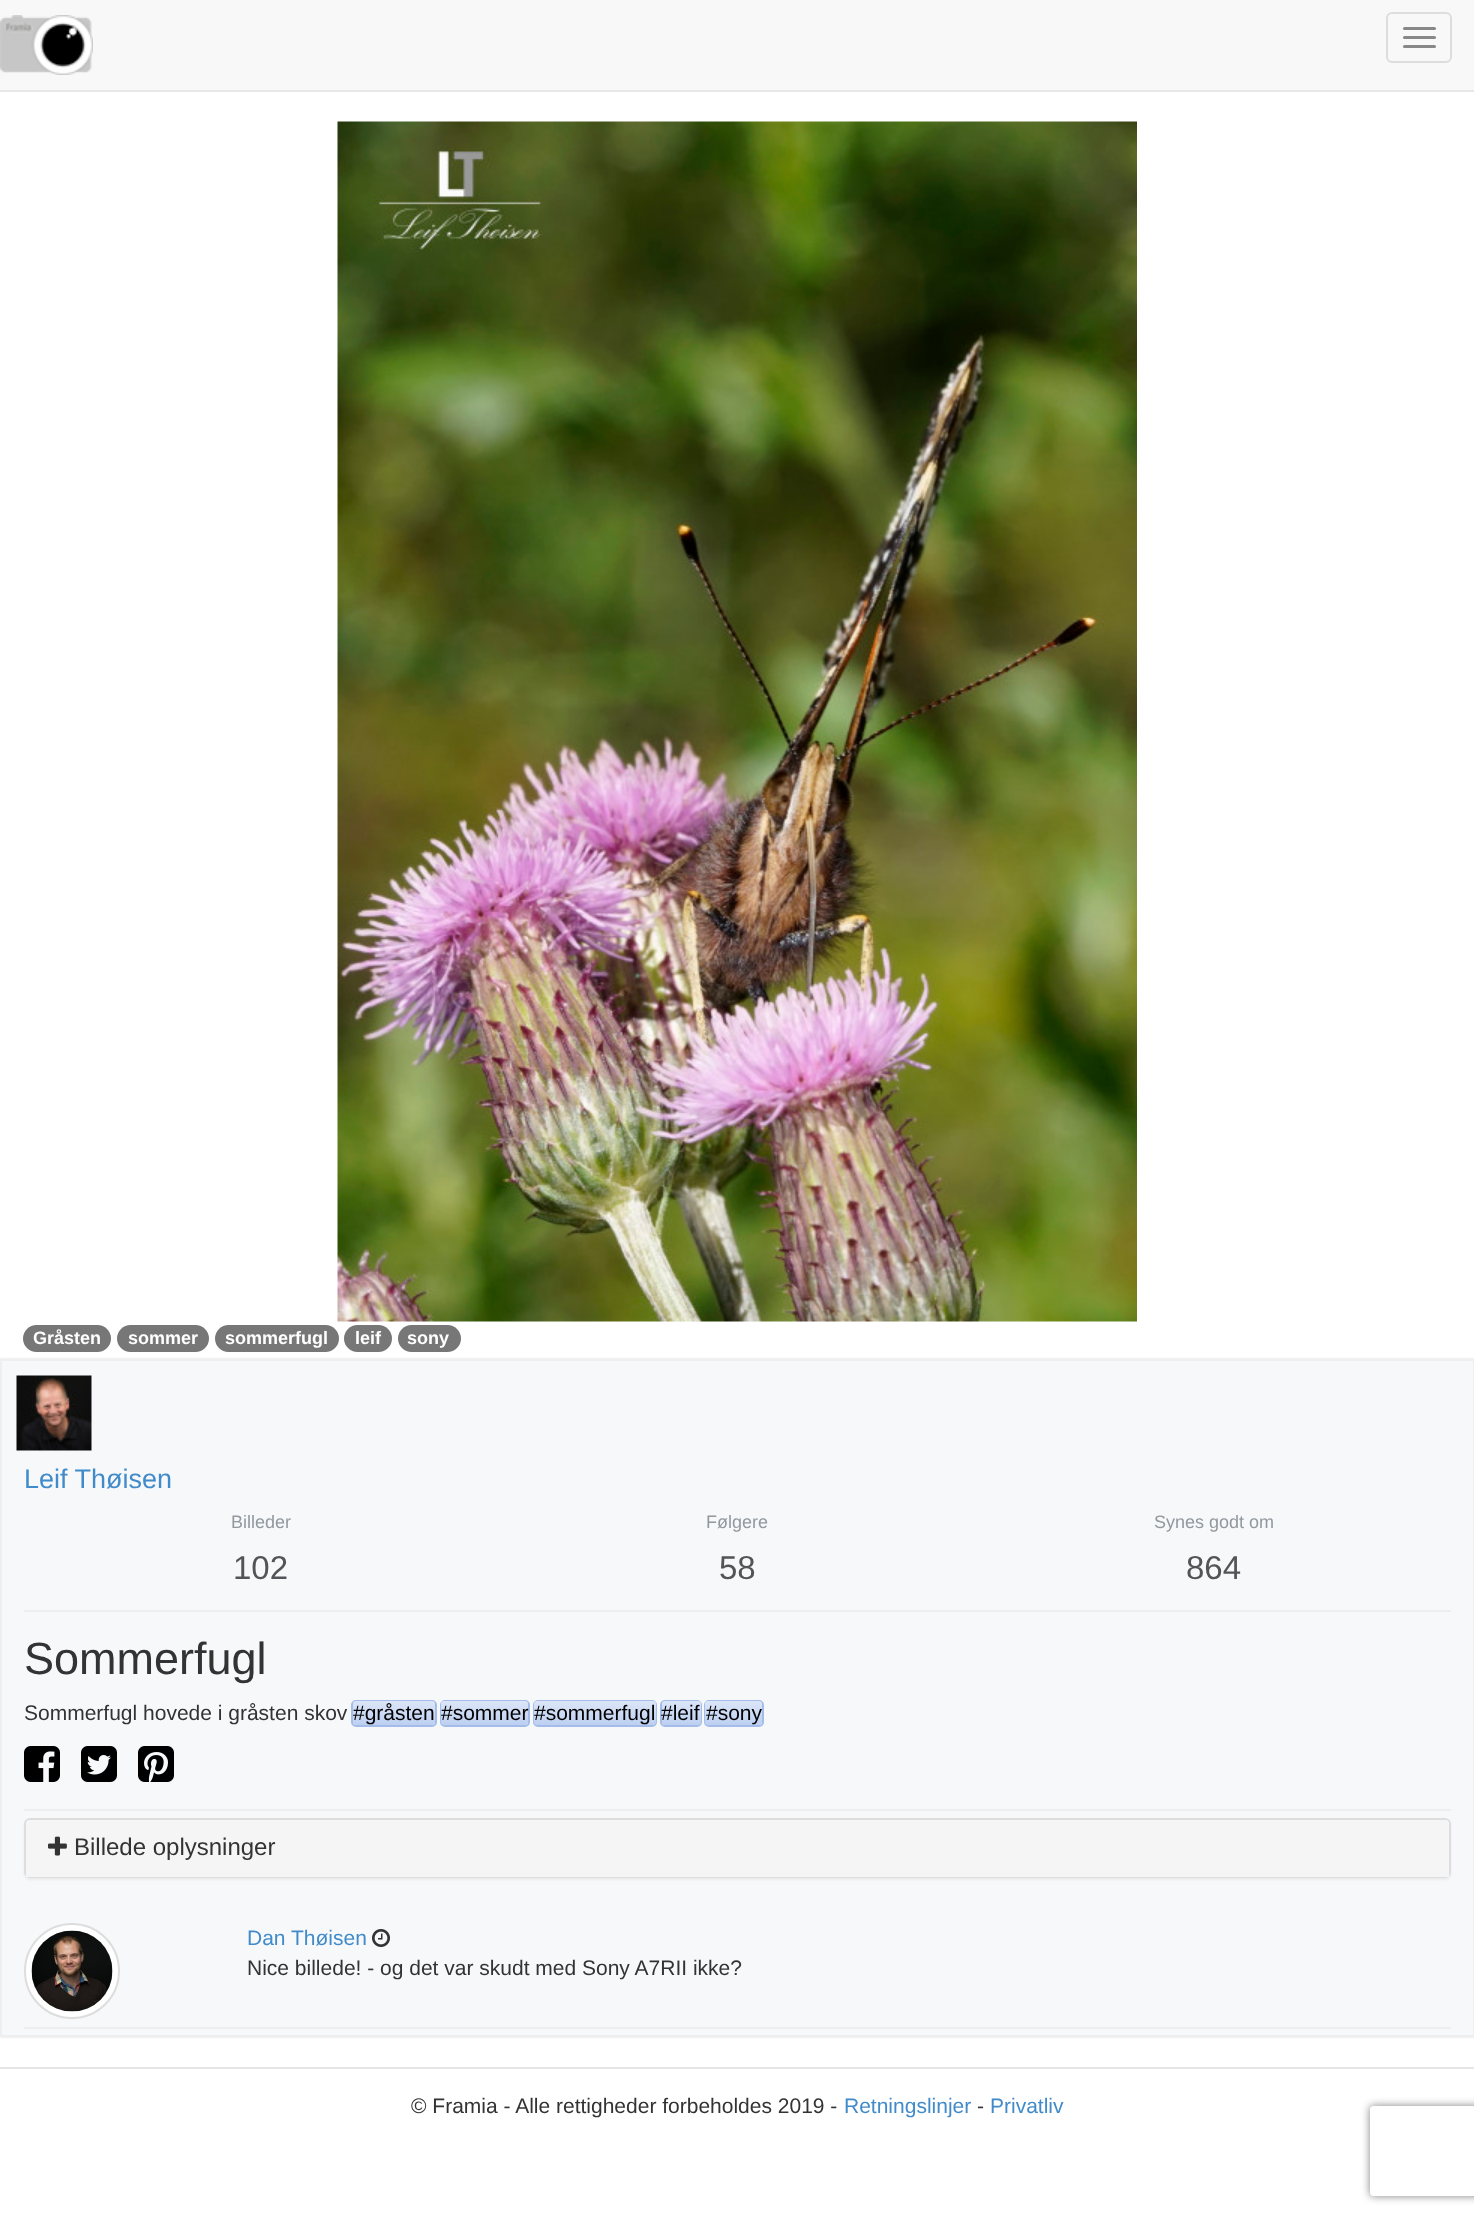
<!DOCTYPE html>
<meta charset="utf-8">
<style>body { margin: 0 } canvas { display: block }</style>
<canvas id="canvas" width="1474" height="2217"></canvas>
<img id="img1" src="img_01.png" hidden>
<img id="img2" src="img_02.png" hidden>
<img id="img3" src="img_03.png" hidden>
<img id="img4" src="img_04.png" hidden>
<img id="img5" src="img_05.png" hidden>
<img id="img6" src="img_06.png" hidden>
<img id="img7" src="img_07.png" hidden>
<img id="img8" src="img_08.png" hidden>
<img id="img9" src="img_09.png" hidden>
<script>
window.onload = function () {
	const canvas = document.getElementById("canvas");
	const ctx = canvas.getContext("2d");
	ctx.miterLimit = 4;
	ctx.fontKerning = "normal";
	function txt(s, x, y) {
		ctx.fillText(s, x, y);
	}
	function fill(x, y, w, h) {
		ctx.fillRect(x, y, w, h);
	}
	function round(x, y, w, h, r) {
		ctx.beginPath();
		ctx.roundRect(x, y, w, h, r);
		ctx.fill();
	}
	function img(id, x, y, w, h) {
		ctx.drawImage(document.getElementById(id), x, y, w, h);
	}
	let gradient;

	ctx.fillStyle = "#FFFFFF";
	fill(0, 0, 1474, 2217);
	ctx.fillStyle = "#F8F8F8";
	fill(0, 0, 1474, 90);
	ctx.fillStyle = "#E7E7E7";
	fill(0, 90, 1474, 2);
	img("img1", 0, 15, 93, 60);
	ctx.beginPath();
	ctx.roundRect(1387, 13, 64, 49, 5);
	ctx.strokeStyle = "#DDDDDD";
	ctx.lineWidth = 2;
	ctx.stroke();
	ctx.fillStyle = "#888888";
	round(1403, 27, 33, 3, 1.5);
	round(1403, 36, 33, 3, 1.5);
	round(1403, 45, 33, 3, 1.5);
	img("img2", 337, 121, 800, 1201);
	ctx.fillStyle = "#777777";
	round(23, 1325, 88, 27, 13.5);
	round(117, 1325, 92, 27, 13.5);
	round(215, 1325, 124, 27, 13.5);
	round(344, 1325, 48, 27, 13.5);
	round(398, 1325, 63, 27, 13.5);
	ctx.fillStyle = "rgba(0, 0, 0, 0.15)";
	ctx.filter = "blur(1px)";
	ctx.beginPath();
	ctx.rect(0, 1359, 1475, 678);
	ctx.fill();
	ctx.filter = "none";
	ctx.fillStyle = "#F7F8FA";
	ctx.beginPath();
	ctx.rect(1, 1360, 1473, 676);
	ctx.fill();
	ctx.strokeStyle = "#EEEFF2";
	ctx.stroke();
	img("img3", 16, 1375, 76, 76);
	ctx.fillStyle = "#EEEEEE";
	fill(24, 1610, 1427, 2);
	ctx.beginPath();
	ctx.roundRect(352, 1701, 84, 25, 4);
	ctx.strokeStyle = "#A3BCEA";
	ctx.stroke();
	gradient = ctx.createLinearGradient(394, 1701, 394, 1725);
	gradient.addColorStop(0, "#DCE6F8");
	gradient.addColorStop(1, "#BDCFF1");
	ctx.fillStyle = gradient;
	round(353, 1701, 82, 24, 3);
	ctx.beginPath();
	ctx.roundRect(441, 1701, 88, 25, 4);
	ctx.stroke();
	gradient = ctx.createLinearGradient(485, 1701, 485, 1725);
	gradient.addColorStop(0, "#DCE6F8");
	gradient.addColorStop(1, "#BDCFF1");
	ctx.fillStyle = gradient;
	round(441, 1701, 87, 24, 3);
	ctx.beginPath();
	ctx.roundRect(534, 1701, 122, 25, 4);
	ctx.stroke();
	gradient = ctx.createLinearGradient(595, 1701, 595, 1725);
	gradient.addColorStop(0, "#DCE6F8");
	gradient.addColorStop(1, "#BDCFF1");
	ctx.fillStyle = gradient;
	round(534, 1701, 122, 24, 3);
	ctx.beginPath();
	ctx.roundRect(661, 1701, 40, 25, 4);
	ctx.stroke();
	gradient = ctx.createLinearGradient(681, 1701, 681, 1725);
	gradient.addColorStop(0, "#DCE6F8");
	gradient.addColorStop(1, "#BDCFF1");
	ctx.fillStyle = gradient;
	round(662, 1701, 39, 24, 3);
	ctx.beginPath();
	ctx.roundRect(705, 1701, 58, 25, 4);
	ctx.stroke();
	gradient = ctx.createLinearGradient(734, 1701, 734, 1725);
	gradient.addColorStop(0, "#DCE6F8");
	gradient.addColorStop(1, "#BDCFF1");
	ctx.fillStyle = gradient;
	round(705, 1701, 57, 24, 3);
	img("img4", 24, 1746, 36, 36);
	img("img5", 81, 1746, 36, 36);
	img("img6", 138, 1746, 36, 36);
	ctx.fillStyle = "#EEEEEE";
	fill(24, 1809, 1427, 2);
	ctx.fillStyle = "rgba(0, 0, 0, 0.05)";
	ctx.filter = "blur(1px)";
	ctx.beginPath();
	ctx.roundRect(24, 1820, 1427, 60, 6);
	ctx.fill();
	ctx.filter = "none";
	ctx.fillStyle = "#FFFFFF";
	ctx.beginPath();
	ctx.roundRect(25, 1819, 1425, 58, 5);
	ctx.fill();
	ctx.strokeStyle = "#DDDDDD";
	ctx.stroke();
	ctx.fillStyle = "#F5F5F5";
	ctx.beginPath();
	ctx.roundRect(26, 1820, 1423, 57, [5, 5, 0, 0]);
	ctx.fill();
	img("img7", 48, 1836, 19, 20);
	ctx.fillStyle = "#FFFFFF";
	ctx.beginPath();
	ctx.arc(72, 1971, 47, 0, Math.PI * 2);
	ctx.fill();
	ctx.stroke();
	img("img8", 31, 1930, 82, 82);
	img("img9", 372, 1929, 18, 18);
	ctx.fillStyle = "#EEEEEE";
	fill(24, 2027, 1427, 2);
	ctx.fillStyle = "#E5E5E5";
	fill(0, 2067, 1474, 2);
	ctx.save();
	ctx.beginPath();
	ctx.moveTo(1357, 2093);
	ctx.lineTo(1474, 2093);
	ctx.lineTo(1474, 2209);
	ctx.lineTo(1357, 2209);
	ctx.closePath();
	ctx.moveTo(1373, 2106);
	ctx.lineTo(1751, 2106);
	ctx.bezierCurveTo(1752.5, 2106, 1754, 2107.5, 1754, 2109);
	ctx.lineTo(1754, 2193);
	ctx.bezierCurveTo(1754, 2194.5, 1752.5, 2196, 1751, 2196);
	ctx.lineTo(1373, 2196);
	ctx.bezierCurveTo(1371.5, 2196, 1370, 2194.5, 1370, 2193);
	ctx.lineTo(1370, 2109);
	ctx.bezierCurveTo(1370, 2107.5, 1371.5, 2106, 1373, 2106);
	ctx.closePath();
	ctx.clip("evenodd");
	ctx.fillStyle = "#808080";
	ctx.filter = "blur(4px)";
	ctx.beginPath();
	ctx.roundRect(1370, 2106, 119, 90, 3);
	ctx.fill();
	ctx.filter = "none";
	ctx.restore();
	ctx.font = "bold 18px Liberation Sans";
	ctx.fillStyle = "#FFFFFF";
	txt("Gråsten", 33, 1344);
	txt("sommer", 128, 1344);
	txt("sommerfugl", 225, 1344);
	txt("leif", 355, 1344);
	txt("sony", 407, 1344);
	ctx.font = "27px Liberation Sans";
	ctx.fillStyle = "#428BCA";
	txt("Leif Thøisen", 24, 1488);
	ctx.font = "18px Liberation Sans";
	ctx.fillStyle = "#91999F";
	txt("Billeder", 231, 1528);
	ctx.font = "33px Liberation Sans";
	ctx.fillStyle = "#525558";
	txt("102", 233, 1579);
	ctx.font = "18px Liberation Sans";
	ctx.fillStyle = "#91999F";
	txt("Følgere", 706, 1528);
	ctx.font = "33px Liberation Sans";
	ctx.fillStyle = "#525558";
	txt("58", 719, 1579);
	ctx.font = "18px Liberation Sans";
	ctx.fillStyle = "#91999F";
	txt("Synes godt om", 1154, 1528);
	ctx.font = "33px Liberation Sans";
	ctx.fillStyle = "#525558";
	txt("864", 1186, 1579);
	ctx.font = "45px Liberation Sans";
	ctx.fillStyle = "#333333";
	txt("Sommerfugl", 24, 1674);
	ctx.font = "21px Liberation Sans";
	txt("Sommerfugl hovede i gråsten skov", 24, 1720);
	ctx.fillStyle = "#000000";
	txt("#gråsten", 353, 1720);
	txt("#sommer", 441, 1720);
	txt("#sommerfugl", 534, 1720);
	txt("#leif", 661, 1720);
	txt("#sony", 706, 1720);
	ctx.font = "24px Liberation Sans";
	ctx.fillStyle = "#333333";
	txt("Billede oplysninger", 74, 1855);
	ctx.font = "21px Liberation Sans";
	ctx.fillStyle = "#428BCA";
	txt("Dan Thøisen", 247, 1945);
	ctx.fillStyle = "#333333";
	txt("Nice billede! - og det var skudt med Sony A7RII ikke?", 247, 1975);
	txt("© Framia - Alle rettigheder forbeholdes 2019 -", 411, 2113);
	ctx.fillStyle = "#428BCA";
	txt("Retningslinjer", 844, 2113);
	ctx.fillStyle = "#333333";
	txt("-", 977, 2113);
	ctx.fillStyle = "#428BCA";
	txt("Privatliv", 990, 2113);
};
</script>
